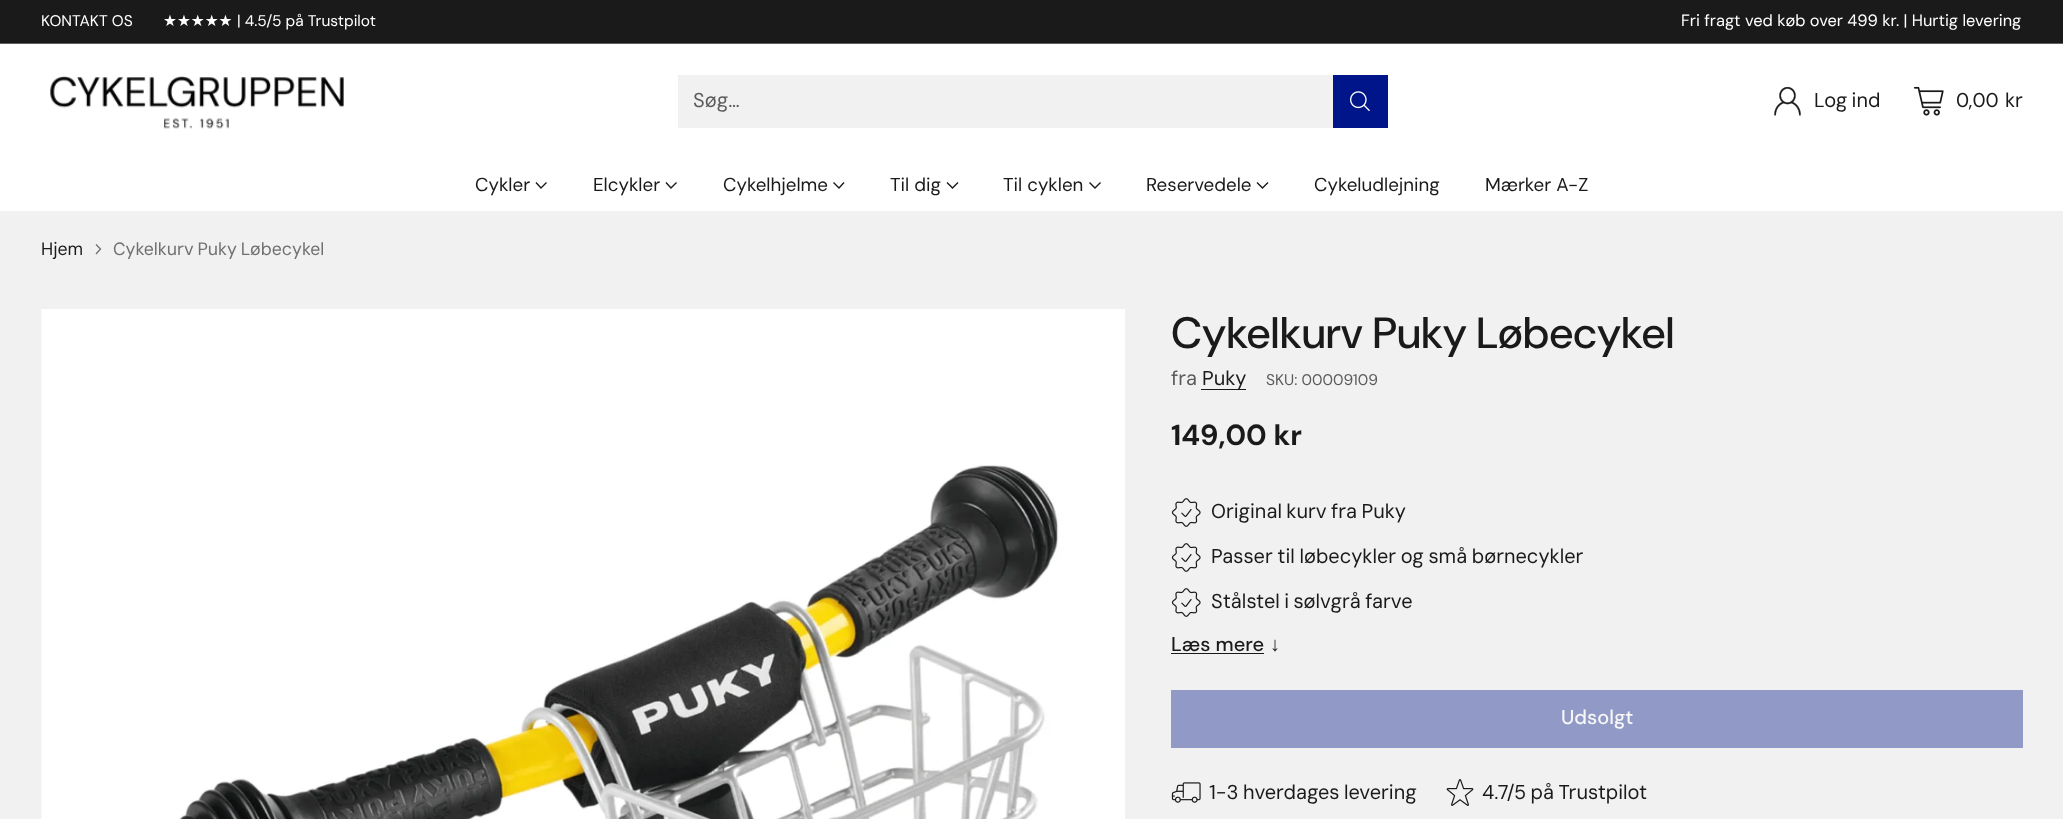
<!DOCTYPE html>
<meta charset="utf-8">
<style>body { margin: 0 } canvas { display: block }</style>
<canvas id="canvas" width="2063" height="819"></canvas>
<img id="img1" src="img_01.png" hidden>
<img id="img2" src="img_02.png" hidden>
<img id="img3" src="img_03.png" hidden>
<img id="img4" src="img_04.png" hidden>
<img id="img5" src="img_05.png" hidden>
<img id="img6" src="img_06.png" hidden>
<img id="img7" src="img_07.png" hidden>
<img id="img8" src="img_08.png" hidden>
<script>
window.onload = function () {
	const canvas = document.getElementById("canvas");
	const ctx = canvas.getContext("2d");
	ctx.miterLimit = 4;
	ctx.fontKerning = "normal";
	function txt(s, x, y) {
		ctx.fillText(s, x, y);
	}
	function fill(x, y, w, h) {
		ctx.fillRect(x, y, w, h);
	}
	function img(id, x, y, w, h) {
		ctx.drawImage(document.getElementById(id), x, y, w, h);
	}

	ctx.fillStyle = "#F1F1F1";
	fill(0, 0, 2063, 819);
	ctx.fillStyle = "#1A1A1A";
	fill(0, 0, 2063, 43);
	ctx.fillStyle = "#5F5F5F";
	fill(0, 43, 2063, 1);
	ctx.fillStyle = "#FFFFFF";
	fill(0, 44, 2063, 167);
	img("img1", 50, 76, 294, 53);
	ctx.fillStyle = "#F1F1F1";
	fill(678, 75, 655, 53);
	ctx.fillStyle = "#001589";
	fill(1333, 75, 55, 53);
	img("img2", 1350, 91, 20, 20);
	img("img3", 1774, 86, 27, 30);
	img("img4", 1913, 86, 31, 30);
	ctx.beginPath();
	ctx.moveTo(536, 182.5);
	ctx.lineTo(541, 188);
	ctx.lineTo(546.5, 182.5);
	ctx.strokeStyle = "#1A1A1A";
	ctx.lineWidth = 1.4;
	ctx.stroke();
	ctx.beginPath();
	ctx.moveTo(666, 182.5);
	ctx.lineTo(671, 188);
	ctx.lineTo(676.5, 182.5);
	ctx.stroke();
	ctx.beginPath();
	ctx.moveTo(833.5, 182.5);
	ctx.lineTo(839, 188);
	ctx.lineTo(844, 182.5);
	ctx.stroke();
	ctx.beginPath();
	ctx.moveTo(947, 182.5);
	ctx.lineTo(952.5, 188);
	ctx.lineTo(958, 182.5);
	ctx.stroke();
	ctx.beginPath();
	ctx.moveTo(1089.5, 182.5);
	ctx.lineTo(1095, 188);
	ctx.lineTo(1100.5, 182.5);
	ctx.stroke();
	ctx.beginPath();
	ctx.moveTo(1257, 182.5);
	ctx.lineTo(1262.5, 188);
	ctx.lineTo(1268, 182.5);
	ctx.stroke();
	ctx.beginPath();
	ctx.moveTo(96, 254);
	ctx.lineTo(100.5, 249);
	ctx.lineTo(96, 244.5);
	ctx.strokeStyle = "#707070";
	ctx.lineWidth = 1.3;
	ctx.stroke();
	img("img5", 41, 309, 1084, 510);
	ctx.fillStyle = "#1A1A1A";
	fill(1201, 389, 45, 1);
	img("img6", 1171, 498, 30, 29);
	img("img6", 1171, 543, 30, 29);
	img("img6", 1171, 588, 30, 29);
	fill(1171, 653, 93, 1);
	ctx.fillStyle = "#9199C7";
	fill(1171, 690, 852, 58);
	img("img7", 1171, 782, 30, 21);
	img("img8", 1446, 779, 28, 27);
	ctx.font = "15.5px 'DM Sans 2'";
	ctx.fillStyle = "#FFFFFF";
	txt("KONTAKT OS", 41, 26);
	ctx.font = "15.5px DejaVu Sans";
	txt("★★★★★", 163, 26);
	ctx.font = "15.5px 'DM Sans 2'";
	txt("| 4.5/5 på Trustpilot", 237, 26);
	ctx.font = "16.4px 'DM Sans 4'";
	txt("Fri fragt ved køb over 499 kr. | Hurtig levering", 1681, 26);
	ctx.font = "20px DM Sans";
	ctx.fillStyle = "#5B5B5B";
	txt("Søg…", 693, 107);
	ctx.wordSpacing = "-1px";
	ctx.fillStyle = "#1A1A1A";
	txt("Log ind", 1814, 107);
	ctx.wordSpacing = "1px";
	txt("0,00 kr", 1956, 107);
	ctx.wordSpacing = "0px";
	ctx.font = "18.75px 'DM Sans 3'";
	txt("Cykler", 475, 191);
	txt("Elcykler", 593, 191);
	txt("Cykelhjelme", 723, 191);
	txt("Til dig", 890, 191);
	txt("Til cyklen", 1003, 191);
	txt("Reservedele", 1146, 191);
	txt("Cykeludlejning", 1314, 191);
	txt("Mærker A-Z", 1485, 191);
	ctx.font = "17.75px DM Sans";
	txt("Hjem", 41, 255);
	ctx.wordSpacing = "-1px";
	ctx.fillStyle = "#707070";
	txt("Cykelkurv Puky Løbecykel", 113, 255);
	ctx.wordSpacing = "0px";
	ctx.font = "500 43.75px DM Sans";
	ctx.fillStyle = "#1A1A1A";
	txt("Cykelkurv Puky Løbecykel", 1171, 348);
	ctx.font = "20px DM Sans";
	ctx.fillStyle = "#5B5B5B";
	txt("fra", 1171, 385);
	ctx.fillStyle = "#1A1A1A";
	txt("Puky", 1202, 385);
	ctx.font = "15.5px 'DM Sans 2'";
	ctx.fillStyle = "#5B5B5B";
	txt("SKU: 00009109", 1266, 385);
	ctx.font = "bold 29px DM Sans";
	ctx.fillStyle = "#1A1A1A";
	txt("149,00 kr", 1171, 445);
	ctx.wordSpacing = "-1px";
	ctx.font = "20px DM Sans";
	txt("Original kurv fra Puky", 1211, 518);
	ctx.wordSpacing = "-0.75px";
	txt("Passer til løbecykler og små børnecykler", 1211, 563);
	ctx.wordSpacing = "-1px";
	txt("Stålstel i sølvgrå farve", 1211, 608);
	ctx.wordSpacing = "0px";
	ctx.font = "500 20px 'DM Sans 2'";
	txt("Læs mere", 1171, 651);
	ctx.font = "20px Liberation Sans";
	txt("↓", 1270, 651);
	ctx.font = "500 20px 'DM Sans 2'";
	ctx.fillStyle = "#F7F7F7";
	txt("Udsolgt", 1561, 724);
	ctx.wordSpacing = "-1px";
	ctx.font = "20px DM Sans";
	ctx.fillStyle = "#1A1A1A";
	txt("1-3 hverdages levering", 1209, 799);
	txt("4.7/5 på Trustpilot", 1482, 799);
};
</script>
